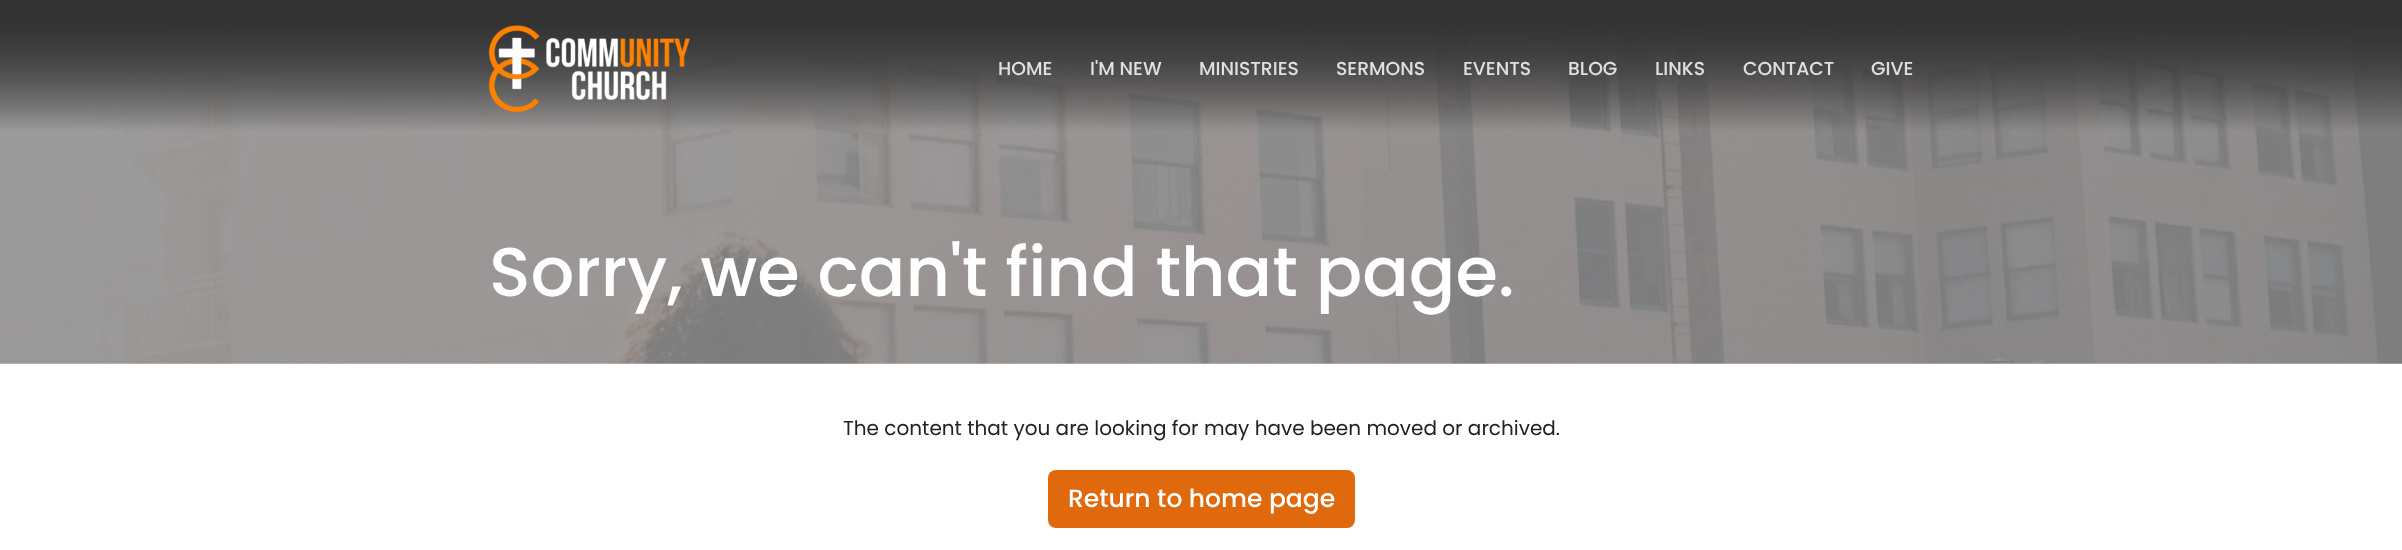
<!DOCTYPE html>
<meta charset="utf-8">
<style>body { margin: 0 } canvas { display: block }</style>
<canvas id="canvas" width="2402" height="550"></canvas>
<img id="img1" src="img_02.png" hidden>
<img id="img2" src="img_01.png" hidden>
<script>
window.onload = function () {
	const canvas = document.getElementById("canvas");
	const ctx = canvas.getContext("2d");
	ctx.miterLimit = 4;
	ctx.fontKerning = "normal";
	function txt(s, x, y) {
		ctx.fillText(s, x, y);
	}
	function fill(x, y, w, h) {
		ctx.fillRect(x, y, w, h);
	}
	function round(x, y, w, h, r) {
		ctx.beginPath();
		ctx.roundRect(x, y, w, h, r);
		ctx.fill();
	}
	function img(id, x, y, w, h) {
		ctx.drawImage(document.getElementById(id), x, y, w, h);
	}

	ctx.fillStyle = "#FFFFFF";
	fill(0, 0, 2402, 550);
	img("img1", 0, 0, 2402, 364);
	img("img2", 488, 25, 202, 88);
	ctx.fillStyle = "#E0690D";
	round(1048, 470, 307, 58, 8);
	ctx.font = "500 18.75px Poppins";
	ctx.fillStyle = "#E1E0E0";
	txt("HOME", 998, 75);
	txt("I'M NEW", 1090, 75);
	txt("MINISTRIES", 1199, 75);
	txt("SERMONS", 1336, 75);
	txt("EVENTS", 1463, 75);
	txt("BLOG", 1568, 75);
	txt("LINKS", 1655, 75);
	txt("CONTACT", 1743, 75);
	txt("GIVE", 1871, 75);
	ctx.font = "500 68.75px Poppins";
	ctx.fillStyle = "#FFFFFF";
	txt("Sorry, we can't find that page.", 489, 296);
	ctx.font = "20px Poppins";
	ctx.fillStyle = "#222222";
	txt("The content that you are looking for may have been moved or archived.", 843, 435);
	ctx.font = "500 25px Poppins";
	ctx.fillStyle = "#FFFFFF";
	txt("Return to home page", 1068, 507);
};
</script>
